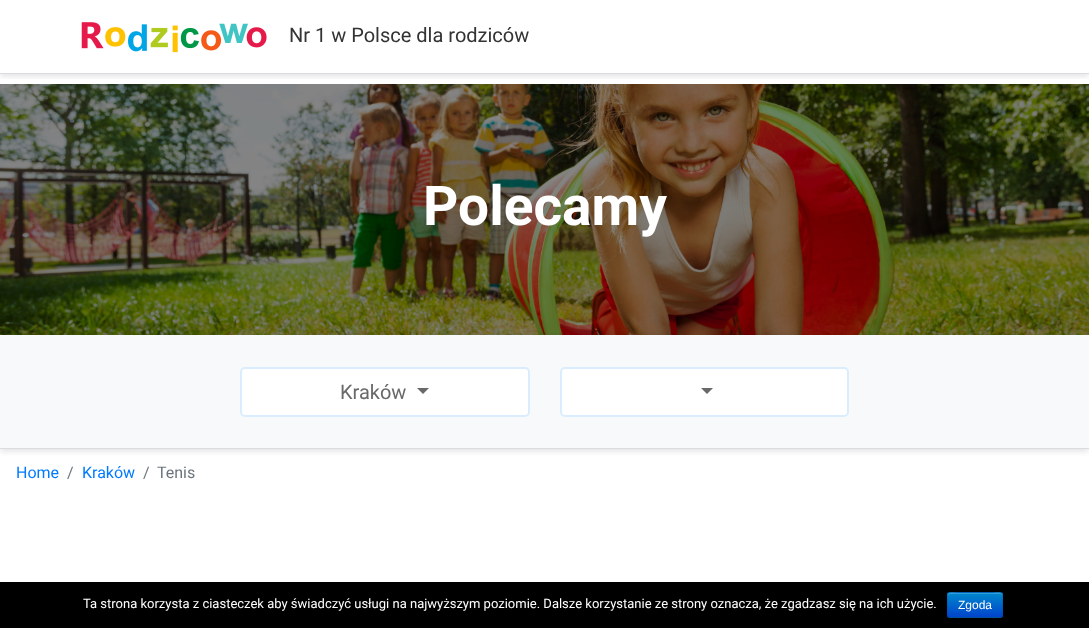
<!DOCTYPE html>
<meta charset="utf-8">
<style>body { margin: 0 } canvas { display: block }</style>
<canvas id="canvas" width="1089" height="628"></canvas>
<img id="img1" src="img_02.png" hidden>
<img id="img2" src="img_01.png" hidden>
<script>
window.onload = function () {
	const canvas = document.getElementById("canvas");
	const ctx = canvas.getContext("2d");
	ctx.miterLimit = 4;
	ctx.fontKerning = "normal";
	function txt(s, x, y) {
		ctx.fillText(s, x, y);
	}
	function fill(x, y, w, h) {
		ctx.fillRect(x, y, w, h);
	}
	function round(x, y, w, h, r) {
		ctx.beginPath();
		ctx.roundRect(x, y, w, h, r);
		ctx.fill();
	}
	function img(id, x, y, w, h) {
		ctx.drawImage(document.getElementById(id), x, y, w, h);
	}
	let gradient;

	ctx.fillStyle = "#FFFFFF";
	fill(0, 0, 1089, 628);
	img("img1", 0, 84, 1089, 251);
	ctx.save();
	ctx.beginPath();
	ctx.rect(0, 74, 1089, 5);
	ctx.clip();
	ctx.fillStyle = "rgba(0, 0, 0, 0.12)";
	ctx.filter = "blur(3px)";
	ctx.beginPath();
	ctx.rect(0, 2, 1089, 74);
	ctx.fill();
	ctx.filter = "none";
	ctx.restore();
	ctx.fillStyle = "#DADCE0";
	fill(0, 73, 1089, 1);
	img("img2", 81, 22, 186, 31);
	ctx.fillStyle = "rgba(0, 0, 0, 0.12)";
	ctx.filter = "blur(3px)";
	ctx.beginPath();
	ctx.rect(0, 337, 1089, 114);
	ctx.fill();
	ctx.filter = "none";
	ctx.fillStyle = "#F8F9FA";
	fill(0, 335, 1089, 113);
	ctx.fillStyle = "#DADCE0";
	fill(0, 448, 1089, 1);
	ctx.fillStyle = "#FFFFFF";
	ctx.beginPath();
	ctx.roundRect(241, 368, 288, 48, 4);
	ctx.fill();
	ctx.strokeStyle = "#D9EDFF";
	ctx.lineWidth = 2;
	ctx.stroke();
	ctx.fillStyle = "#696969";
	ctx.beginPath();
	ctx.moveTo(417, 388);
	ctx.lineTo(429, 388);
	ctx.lineTo(423, 394);
	ctx.closePath();
	ctx.fill();
	ctx.fillStyle = "#FFFFFF";
	ctx.beginPath();
	ctx.roundRect(561, 368, 287, 48, 4);
	ctx.fill();
	ctx.stroke();
	ctx.fillStyle = "#696969";
	ctx.beginPath();
	ctx.moveTo(701, 388);
	ctx.lineTo(713, 388);
	ctx.lineTo(707, 394);
	ctx.closePath();
	ctx.fill();
	ctx.fillStyle = "#000000";
	fill(0, 582, 1089, 46);
	ctx.fillStyle = "#006DCC";
	round(947, 592, 56, 26, 3);
	ctx.save();
	ctx.beginPath();
	ctx.roundRect(947, 592, 56, 26, 3);
	ctx.clip();
	gradient = ctx.createLinearGradient(975, 593, 975, 617);
	gradient.addColorStop(0, "#0088CC");
	gradient.addColorStop(1, "#0044CC");
	ctx.fillStyle = gradient;
	fill(947, 593, 56, 24);
	ctx.restore();
	ctx.fillStyle = "#339FD6";
	ctx.beginPath();
	ctx.moveTo(950, 594);
	ctx.lineTo(1000, 594);
	ctx.bezierCurveTo(1001, 594, 1002, 595, 1002, 596);
	ctx.bezierCurveTo(1002, 591, 996, 593, 992, 593);
	ctx.lineTo(958, 593);
	ctx.bezierCurveTo(954, 593, 948, 591, 948, 596);
	ctx.bezierCurveTo(948, 595, 949, 594, 950, 594);
	ctx.closePath();
	ctx.fill();
	ctx.beginPath();
	ctx.moveTo(1002, 617);
	ctx.lineTo(1000, 617.5);
	ctx.lineTo(950, 617.5);
	ctx.lineTo(948, 617);
	ctx.strokeStyle = "rgba(0, 0, 0, 0.25)";
	ctx.lineWidth = 1;
	ctx.stroke();
	ctx.beginPath();
	ctx.moveTo(948, 617);
	ctx.bezierCurveTo(946.5, 615, 947.5, 607.5, 947.5, 605);
	ctx.bezierCurveTo(947.5, 591, 945, 592.5, 958.5, 592.5);
	ctx.lineTo(991.5, 592.5);
	ctx.bezierCurveTo(1005, 592.5, 1002.5, 591, 1002.5, 605);
	ctx.bezierCurveTo(1002.5, 607.5, 1003.5, 615, 1002, 617);
	ctx.strokeStyle = "rgba(0, 0, 0, 0.1)";
	ctx.stroke();
	ctx.font = "20px Roboto";
	ctx.fillStyle = "#333333";
	txt("Nr 1 w Polsce dla rodziców", 289, 42);
	ctx.font = "bold 55px Roboto";
	ctx.fillStyle = "#FFFFFF";
	txt("Polecamy", 423, 225);
	ctx.font = "20px Roboto";
	ctx.fillStyle = "#696969";
	txt("Kraków", 340, 399);
	ctx.font = "16px Roboto";
	ctx.fillStyle = "#007BFF";
	txt("Home", 16, 478);
	ctx.fillStyle = "#6C757D";
	txt("/", 67, 478);
	ctx.fillStyle = "#007BFF";
	txt("Kraków", 82, 478);
	ctx.fillStyle = "#6C757D";
	txt("/", 143, 478);
	txt("Tenis", 157, 478);
	ctx.font = "13px Roboto";
	ctx.fillStyle = "#FFFFFF";
	txt("Ta strona korzysta z ciasteczek aby świadczyć usługi na najwyższym poziomie. Dalsze korzystanie ze strony oznacza, że zgadzasz się na ich użycie.", 83, 608);
	ctx.font = "12px Liberation Sans";
	txt("Zgoda", 958, 609);
};
</script>
